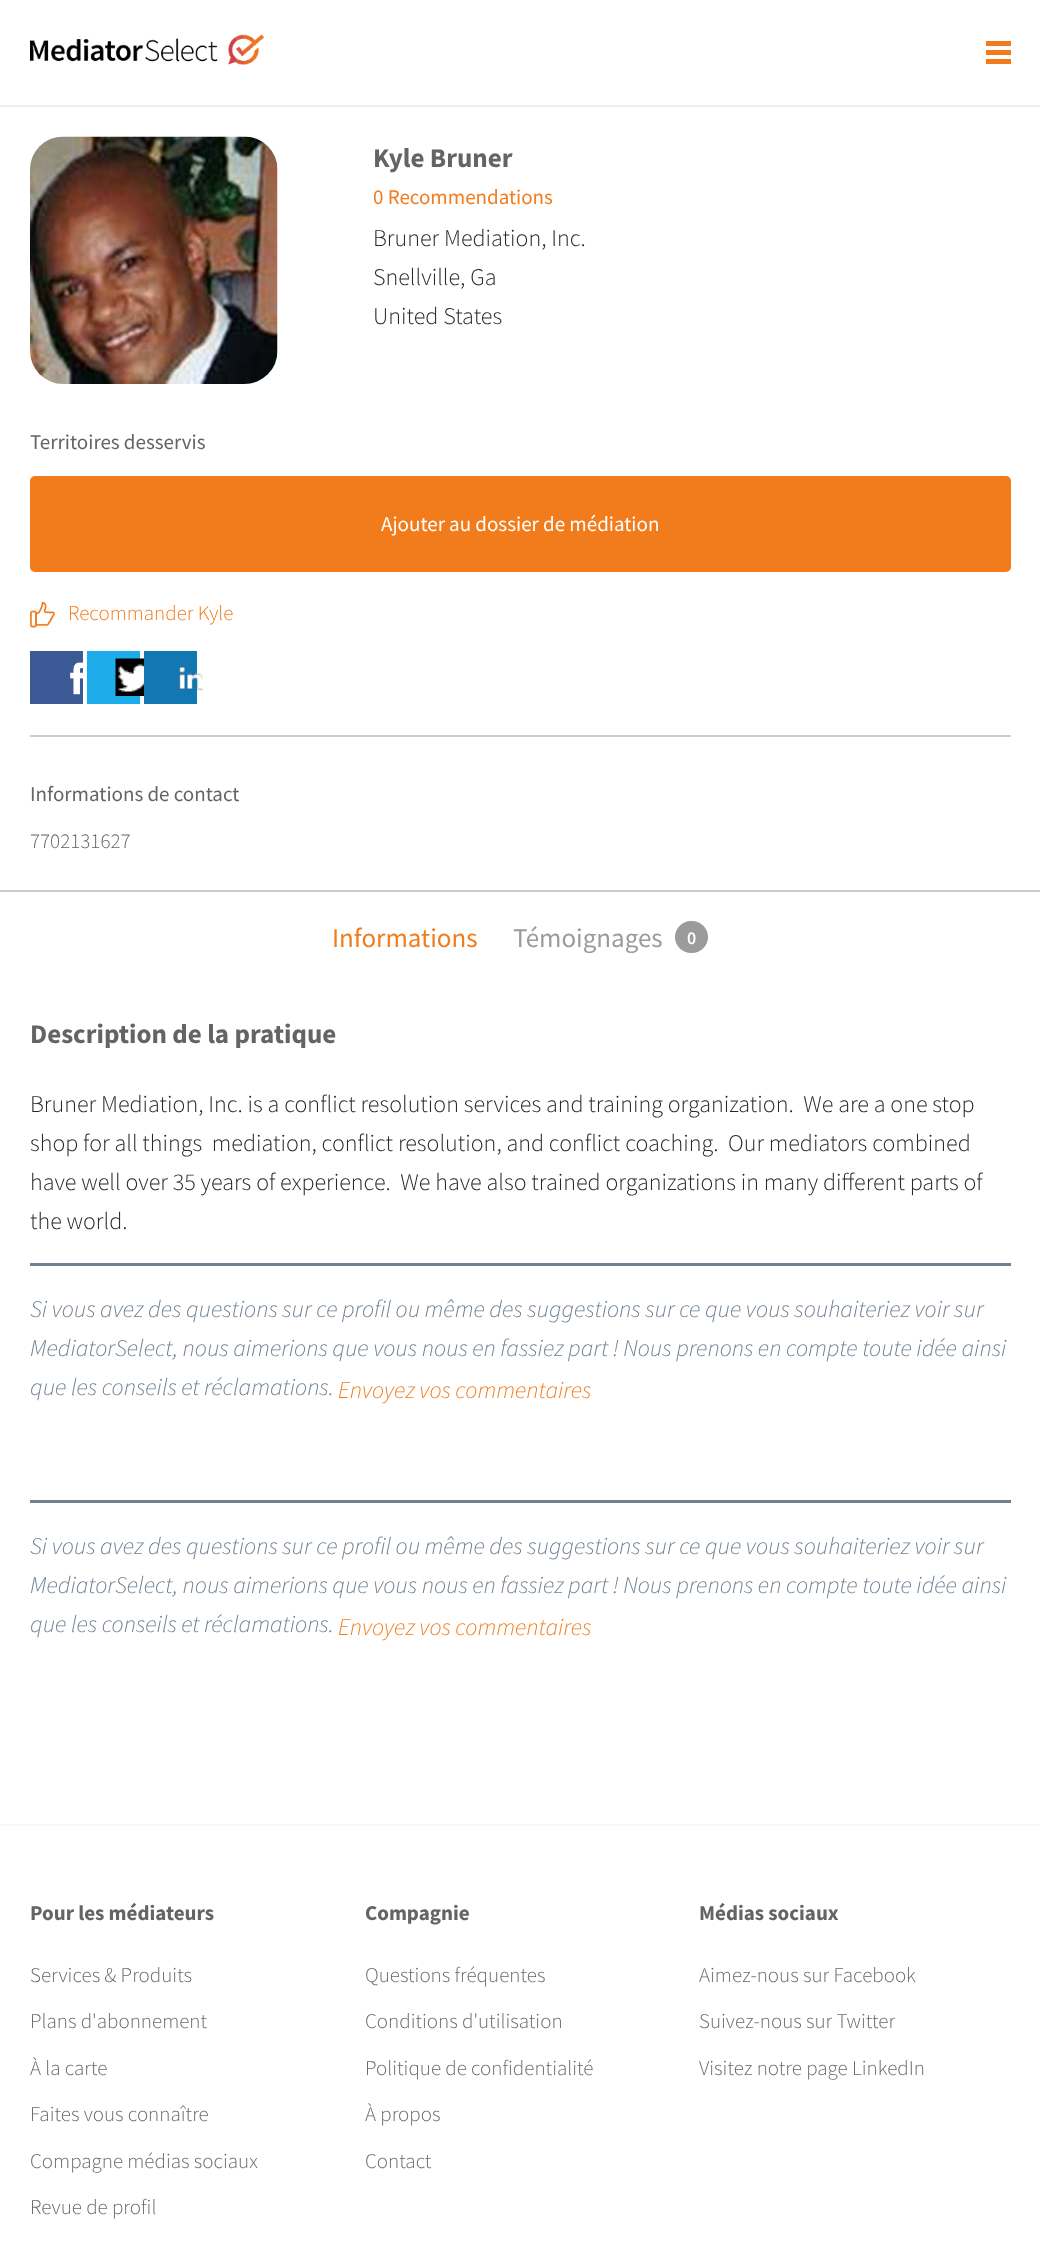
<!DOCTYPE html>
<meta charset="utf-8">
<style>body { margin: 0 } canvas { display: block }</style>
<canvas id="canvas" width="1040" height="2252"></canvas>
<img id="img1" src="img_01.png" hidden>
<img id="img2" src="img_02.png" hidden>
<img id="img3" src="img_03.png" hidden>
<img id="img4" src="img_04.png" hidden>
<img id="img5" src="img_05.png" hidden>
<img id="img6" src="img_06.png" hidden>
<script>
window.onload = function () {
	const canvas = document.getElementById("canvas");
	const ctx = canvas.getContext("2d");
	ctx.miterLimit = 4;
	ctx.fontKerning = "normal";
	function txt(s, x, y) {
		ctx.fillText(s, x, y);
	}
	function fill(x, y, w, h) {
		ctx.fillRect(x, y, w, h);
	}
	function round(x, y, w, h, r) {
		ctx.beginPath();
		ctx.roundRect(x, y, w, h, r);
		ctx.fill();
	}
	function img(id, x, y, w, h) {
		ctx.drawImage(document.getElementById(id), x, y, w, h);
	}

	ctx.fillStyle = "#FFFFFF";
	fill(0, 0, 1040, 2252);
	img("img1", 30, 34, 234, 31);
	ctx.fillStyle = "#F27C1C";
	fill(986, 50, 25, 5);
	fill(986, 41, 25, 5);
	fill(986, 59, 25, 5);
	ctx.fillStyle = "#EEEEEE";
	fill(0, 105, 1040, 2);
	img("img2", 30, 136, 248, 248);
	ctx.fillStyle = "#F27C1C";
	round(30, 476, 981, 96, 5);
	img("img3", 30, 602, 25, 26);
	ctx.fillStyle = "#3C5A96";
	fill(30, 651, 53, 53);
	img("img4", 70, 662, 13, 33);
	ctx.fillStyle = "#1DADEB";
	fill(87, 651, 53, 53);
	img("img5", 115, 658, 29, 38);
	ctx.fillStyle = "#1178B3";
	fill(144, 651, 53, 53);
	img("img6", 178, 666, 25, 25);
	ctx.fillStyle = "#CCCCCC";
	fill(30, 735, 981, 2);
	fill(0, 890, 1040, 2);
	ctx.fillStyle = "#9B9B9B";
	round(675, 921, 33, 32, 16);
	ctx.fillStyle = "#708090";
	fill(30, 1263, 981, 3);
	fill(30, 1500, 981, 3);
	ctx.fillStyle = "#F7F7F7";
	fill(0, 1824, 1040, 2);
	ctx.font = "bold 27px Source Sans Pro";
	ctx.fillStyle = "#646464";
	txt("Kyle Bruner", 373, 167);
	ctx.font = "21px Source Sans Pro";
	ctx.fillStyle = "#F27C1C";
	txt("0 Recommendations", 373, 204);
	ctx.font = "300 24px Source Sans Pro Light";
	ctx.fillStyle = "#26282D";
	txt("Bruner Mediation, Inc.", 373, 246);
	txt("Snellville, Ga", 373, 285);
	txt("United States", 373, 324);
	ctx.font = "21px Source Sans Pro";
	ctx.fillStyle = "#646464";
	txt("Territoires desservis", 30, 449);
	ctx.fillStyle = "#FFFFFF";
	txt("Ajouter au dossier de médiation", 381, 531);
	ctx.font = "300 21px Source Sans Pro Light";
	ctx.fillStyle = "#F27C1C";
	txt("Recommander Kyle", 68, 620);
	ctx.font = "21px Source Sans Pro";
	ctx.fillStyle = "#646464";
	txt("Informations de contact", 30, 801);
	ctx.font = "300 21px Source Sans Pro Light";
	txt("7702131627", 30, 848);
	ctx.font = "27px Source Sans Pro";
	ctx.fillStyle = "#F27C1C";
	txt("Informations", 332, 947);
	ctx.fillStyle = "#9B9B9B";
	txt("Témoignages", 513, 947);
	ctx.font = "600 18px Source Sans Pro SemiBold";
	ctx.fillStyle = "#FFFFFF";
	txt("0", 687, 944);
	ctx.font = "bold 27px Source Sans Pro";
	ctx.fillStyle = "#646464";
	txt("Description de la pratique", 30, 1043);
	ctx.font = "300 24px Source Sans Pro Light";
	ctx.fillStyle = "#26282D";
	txt("Bruner Mediation, Inc. is a conflict resolution services and training organization.  We are a one stop", 30, 1112);
	txt("shop for all things  mediation, conflict resolution, and conflict coaching.  Our mediators combined", 30, 1151);
	txt("have well over 35 years of experience.  We have also trained organizations in many different parts of", 30, 1190);
	txt("the world.", 30, 1229);
	ctx.font = "italic 300 24px Source Sans Pro Light";
	ctx.fillStyle = "#708090";
	txt("Si vous avez des questions sur ce profil ou même des suggestions sur ce que vous souhaiteriez voir sur", 30, 1317);
	txt("MediatorSelect, nous aimerions que vous nous en fassiez part ! Nous prenons en compte toute idée ainsi", 30, 1356);
	txt("que les conseils et réclamations.", 30, 1395);
	ctx.fillStyle = "#F27C1C";
	txt("Envoyez vos commentaires", 338, 1398);
	ctx.fillStyle = "#708090";
	txt("Si vous avez des questions sur ce profil ou même des suggestions sur ce que vous souhaiteriez voir sur", 30, 1554);
	txt("MediatorSelect, nous aimerions que vous nous en fassiez part ! Nous prenons en compte toute idée ainsi", 30, 1593);
	txt("que les conseils et réclamations.", 30, 1632);
	ctx.fillStyle = "#F27C1C";
	txt("Envoyez vos commentaires", 338, 1635);
	ctx.font = "bold 21px Source Sans Pro";
	ctx.fillStyle = "#646464";
	txt("Pour les médiateurs", 30, 1920);
	ctx.font = "300 21px Source Sans Pro Light";
	ctx.fillStyle = "#6B6969";
	txt("Services & Produits", 30, 1982);
	txt("Plans d'abonnement", 30, 2028);
	txt("À la carte", 30, 2075);
	txt("Faites vous connaître", 30, 2121);
	txt("Compagne médias sociaux", 30, 2168);
	txt("Revue de profil", 30, 2214);
	ctx.font = "bold 21px Source Sans Pro";
	ctx.fillStyle = "#646464";
	txt("Compagnie", 365, 1920);
	ctx.font = "300 21px Source Sans Pro Light";
	ctx.fillStyle = "#6B6969";
	txt("Questions fréquentes", 365, 1982);
	txt("Conditions d'utilisation", 365, 2028);
	txt("Politique de confidentialité", 365, 2075);
	txt("À propos", 365, 2121);
	txt("Contact", 365, 2168);
	ctx.font = "bold 21px Source Sans Pro";
	ctx.fillStyle = "#646464";
	txt("Médias sociaux", 699, 1920);
	ctx.font = "300 21px Source Sans Pro Light";
	ctx.fillStyle = "#6B6969";
	txt("Aimez-nous sur Facebook", 699, 1982);
	txt("Suivez-nous sur Twitter", 699, 2028);
	txt("Visitez notre page LinkedIn", 699, 2075);
};
</script>
